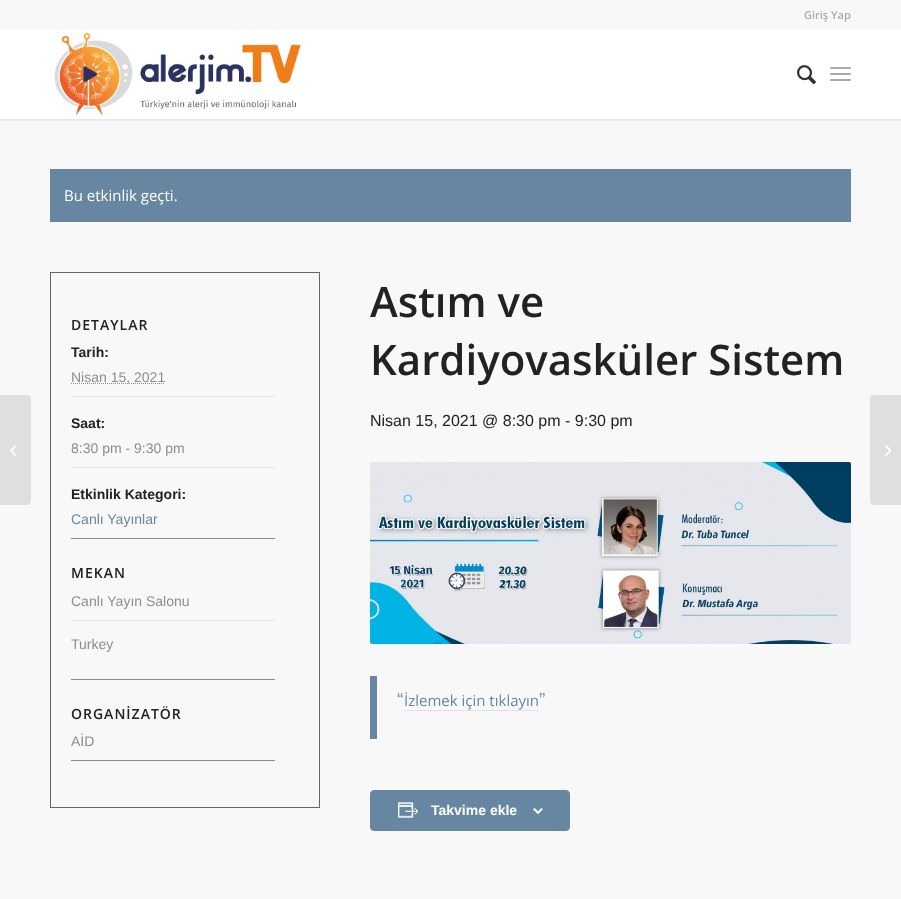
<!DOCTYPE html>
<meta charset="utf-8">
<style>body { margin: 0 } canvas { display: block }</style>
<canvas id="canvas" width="901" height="899"></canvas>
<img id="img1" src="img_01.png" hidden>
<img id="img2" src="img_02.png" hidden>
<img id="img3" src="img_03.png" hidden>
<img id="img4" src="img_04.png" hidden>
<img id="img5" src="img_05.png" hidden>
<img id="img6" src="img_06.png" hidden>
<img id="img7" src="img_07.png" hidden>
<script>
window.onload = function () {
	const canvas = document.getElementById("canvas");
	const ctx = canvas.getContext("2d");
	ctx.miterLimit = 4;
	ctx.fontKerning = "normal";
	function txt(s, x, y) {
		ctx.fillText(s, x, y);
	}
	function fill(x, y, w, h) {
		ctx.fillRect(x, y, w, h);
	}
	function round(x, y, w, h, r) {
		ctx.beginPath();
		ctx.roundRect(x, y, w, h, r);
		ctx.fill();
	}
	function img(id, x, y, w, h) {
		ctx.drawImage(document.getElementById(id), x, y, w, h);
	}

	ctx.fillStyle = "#F8F8F8";
	fill(0, 0, 901, 899);
	ctx.fillStyle = "rgba(0, 0, 0, 0.1)";
	ctx.filter = "blur(1px)";
	ctx.beginPath();
	ctx.rect(-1, -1, 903, 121);
	ctx.fill();
	ctx.filter = "none";
	ctx.fillStyle = "#F8F8F8";
	fill(0, 0, 901, 30);
	ctx.fillStyle = "#FFFFFF";
	fill(0, 30, 901, 89);
	img("img1", 54, 33, 247, 83);
	img("img2", 797, 65, 19, 20);
	ctx.fillStyle = "#AAAAAA";
	round(830, 73, 21, 2, 1);
	round(830, 67, 21, 2, 1);
	round(830, 79, 21, 2, 1);
	ctx.fillStyle = "#DFDFDF";
	ctx.beginPath();
	ctx.roundRect(0, 395, 31, 110, [0, 4, 4, 0]);
	ctx.fill();
	img("img3", 10, 445, 7, 11);
	ctx.fillStyle = "#6786A1";
	fill(50, 169, 801, 53);
	ctx.strokeStyle = "#666666";
	ctx.strokeRect(50.5, 272.5, 269, 535);
	ctx.fillStyle = "#E1E1E1";
	fill(71, 396, 204, 1);
	ctx.beginPath();
	ctx.moveTo(71, 383.5);
	ctx.lineTo(165, 383.5);
	ctx.strokeStyle = "#8D8D8D";
	ctx.setLineDash([1, 1]);
	ctx.stroke();
	fill(71, 467, 204, 1);
	ctx.fillStyle = "#8D8D8D";
	fill(71, 538, 204, 1);
	ctx.fillStyle = "#E1E1E1";
	fill(71, 620, 204, 1);
	ctx.fillStyle = "#8D8D8D";
	fill(71, 679, 204, 1);
	fill(71, 760, 204, 1);
	img("img4", 370, 462, 481, 182);
	ctx.fillStyle = "#6786A1";
	fill(370, 676, 7, 63);
	ctx.fillStyle = "#E1E1E1";
	fill(404, 710, 135, 1);
	ctx.fillStyle = "#6786A1";
	ctx.beginPath();
	ctx.roundRect(370.5, 790.5, 199, 40, 3.5);
	ctx.fill();
	ctx.strokeStyle = "#6786A1";
	ctx.setLineDash([]);
	ctx.stroke();
	img("img5", 398, 802, 20, 16);
	img("img6", 533, 808, 10, 6);
	ctx.fillStyle = "#DFDFDF";
	ctx.beginPath();
	ctx.roundRect(870, 395, 31, 110, [4, 0, 0, 4]);
	ctx.fill();
	img("img7", 885, 445, 7, 11);
	ctx.font = "600 11px Open Sans";
	ctx.fillStyle = "#AAAAAA";
	txt("Giriş Yap", 804, 19);
	ctx.font = "15px Open Sans";
	ctx.fillStyle = "#FFFFFF";
	txt("Bu etkinlik geçti.", 64, 201);
	ctx.letterSpacing = "1px";
	ctx.font = "600 14px Open Sans";
	ctx.fillStyle = "#222222";
	txt("DETAYLAR", 71, 330);
	ctx.letterSpacing = "0px";
	ctx.font = "bold 14px Liberation Sans";
	txt("Tarih:", 71, 357);
	ctx.font = "14px Liberation Sans";
	ctx.fillStyle = "#8D8D8D";
	txt("Nisan 15, 2021", 71, 382);
	ctx.font = "bold 14px Liberation Sans";
	ctx.fillStyle = "#222222";
	txt("Saat:", 71, 428);
	ctx.font = "14px Liberation Sans";
	ctx.fillStyle = "#8D8D8D";
	txt("8:30 pm - 9:30 pm", 71, 453);
	ctx.font = "bold 14px Liberation Sans";
	ctx.fillStyle = "#222222";
	txt("Etkinlik Kategori:", 71, 499);
	ctx.font = "14px Liberation Sans";
	ctx.fillStyle = "#6786A1";
	txt("Canlı Yayınlar", 71, 524);
	ctx.letterSpacing = "1px";
	ctx.font = "600 14px Open Sans";
	ctx.fillStyle = "#222222";
	txt("MEKAN", 71, 578);
	ctx.letterSpacing = "0px";
	ctx.font = "14px Liberation Sans";
	ctx.fillStyle = "#8D8D8D";
	txt("Canlı Yayın Salonu", 71, 606);
	txt("Turkey", 71, 649);
	ctx.letterSpacing = "1px";
	ctx.font = "600 14px Open Sans";
	ctx.fillStyle = "#222222";
	txt("ORGANİZATÖR", 71, 719);
	ctx.letterSpacing = "0px";
	ctx.font = "14px Liberation Sans";
	ctx.fillStyle = "#8D8D8D";
	txt("AİD", 71, 746);
	ctx.font = "600 42px Open Sans";
	ctx.fillStyle = "#222222";
	txt("Astım ve", 370, 317);
	txt("Kardiyovasküler Sistem", 370, 375);
	ctx.font = "16px Liberation Sans";
	txt("Nisan 15, 2021 @ 8:30 pm - 9:30 pm", 370, 426);
	ctx.font = "19px Liberation Sans";
	ctx.fillStyle = "#8D8D8D";
	txt("“", 397, 706);
	ctx.font = "15px Open Sans";
	ctx.fillStyle = "#6786A1";
	txt("İzlemek için tıklayın", 404, 706);
	ctx.font = "19px Liberation Sans";
	ctx.fillStyle = "#8D8D8D";
	txt("”", 539, 706);
	ctx.font = "bold 14px Liberation Sans";
	ctx.fillStyle = "#FFFFFF";
	txt("Takvime ekle", 431, 815);
};
</script>
